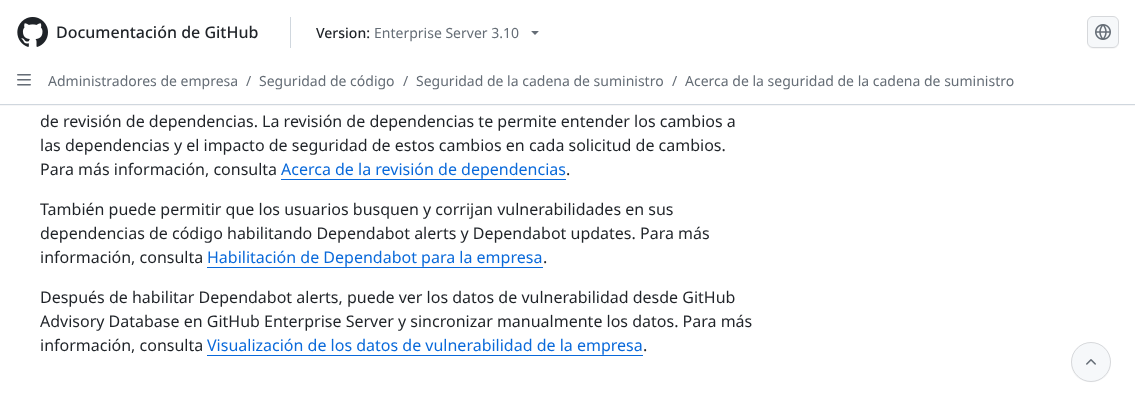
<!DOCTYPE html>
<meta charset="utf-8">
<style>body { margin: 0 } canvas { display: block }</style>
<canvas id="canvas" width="1135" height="406"></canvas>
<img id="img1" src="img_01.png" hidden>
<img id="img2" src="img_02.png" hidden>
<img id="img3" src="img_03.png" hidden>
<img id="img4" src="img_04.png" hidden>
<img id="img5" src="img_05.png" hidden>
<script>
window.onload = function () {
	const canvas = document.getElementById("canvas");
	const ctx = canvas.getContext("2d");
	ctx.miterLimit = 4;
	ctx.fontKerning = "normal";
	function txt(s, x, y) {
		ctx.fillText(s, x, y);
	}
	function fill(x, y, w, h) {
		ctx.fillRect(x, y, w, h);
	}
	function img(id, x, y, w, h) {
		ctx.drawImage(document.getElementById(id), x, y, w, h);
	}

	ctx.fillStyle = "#FFFFFF";
	fill(0, 0, 1135, 406);
	ctx.fillStyle = "rgba(31, 35, 40, 0.04)";
	fill(0, 105, 1135, 1);
	ctx.fillStyle = "#D0D7DE";
	fill(0, 104, 1135, 1);
	img("img1", 17, 17, 31, 30);
	fill(290, 17, 1, 31);
	img("img2", 531, 31, 8, 4);
	ctx.fillStyle = "#F6F6F6";
	ctx.beginPath();
	ctx.moveTo(1087, 42);
	ctx.bezierCurveTo(1087, 48.5, 1091, 49, 1096.5, 49);
	ctx.lineTo(1109.5, 49);
	ctx.bezierCurveTo(1115, 49, 1119, 48.5, 1119, 42);
	ctx.bezierCurveTo(1119, 45.5, 1116.5, 48, 1113, 48);
	ctx.lineTo(1093, 48);
	ctx.bezierCurveTo(1089.5, 48, 1087, 45.5, 1087, 42);
	ctx.closePath();
	ctx.fill();
	ctx.fillStyle = "#F6F8FA";
	ctx.beginPath();
	ctx.roundRect(1087.5, 16.5, 31, 31, 5.5);
	ctx.fill();
	ctx.strokeStyle = "#D6D8DB";
	ctx.stroke();
	img("img3", 1095, 24, 16, 16);
	img("img4", 17, 74, 14, 12);
	ctx.fillStyle = "#0969DA";
	fill(281, 179, 285, 1);
	fill(207, 267, 336, 1);
	fill(207, 355, 436, 1);
	ctx.fillStyle = "#F6F6F6";
	ctx.beginPath();
	ctx.moveTo(1071, 362);
	ctx.bezierCurveTo(1070, 389, 1112, 389, 1111, 362);
	ctx.bezierCurveTo(1110, 388, 1072, 388, 1071, 362);
	ctx.closePath();
	ctx.fill();
	ctx.fillStyle = "#F6F8FA";
	ctx.beginPath();
	ctx.arc(1091, 362, 20, 0, Math.PI * 2);
	ctx.fill();
	ctx.beginPath();
	ctx.arc(1091, 362, 19.5, 0, Math.PI * 2);
	ctx.strokeStyle = "rgba(31, 35, 40, 0.15)";
	ctx.stroke();
	img("img5", 1086, 359, 10, 6);
	ctx.font = "500 16px Noto Sans";
	ctx.fillStyle = "#1F2328";
	txt("Documentación de GitHub", 56, 38);
	ctx.font = "500 14px Noto Sans";
	txt("Version:", 316, 38);
	ctx.font = "14px Noto Sans";
	ctx.fillStyle = "#656D76";
	txt("Enterprise Server 3.10", 374, 38);
	txt("Administradores de empresa", 48, 86);
	txt("/", 246, 86);
	txt("Seguridad de código", 259, 86);
	txt("/", 403, 86);
	txt("Seguridad de la cadena de suministro", 416, 86);
	txt("/", 672, 86);
	txt("Acerca de la seguridad de la cadena de suministro", 685, 86);
	ctx.font = "16px Noto Sans";
	ctx.fillStyle = "#1F2328";
	txt("de revisión de dependencias. La revisión de dependencias te permite entender los cambios a", 40, 127);
	txt("las dependencias y el impacto de seguridad de estos cambios en cada solicitud de cambios.", 40, 151);
	txt("Para más información, consulta", 40, 175);
	ctx.fillStyle = "#0969DA";
	txt("Acerca de la revisión de dependencias", 281, 175);
	ctx.fillStyle = "#1F2328";
	txt(".", 566, 175);
	txt("También puede permitir que los usuarios busquen y corrijan vulnerabilidades en sus", 40, 215);
	txt("dependencias de código habilitando Dependabot alerts y Dependabot updates. Para más", 40, 239);
	txt("información, consulta", 40, 263);
	ctx.fillStyle = "#0969DA";
	txt("Habilitación de Dependabot para la empresa", 207, 263);
	ctx.fillStyle = "#1F2328";
	txt(".", 543, 263);
	txt("Después de habilitar Dependabot alerts, puede ver los datos de vulnerabilidad desde GitHub", 40, 303);
	txt("Advisory Database en GitHub Enterprise Server y sincronizar manualmente los datos. Para más", 40, 327);
	txt("información, consulta", 40, 351);
	ctx.fillStyle = "#0969DA";
	txt("Visualización de los datos de vulnerabilidad de la empresa", 207, 351);
	ctx.fillStyle = "#1F2328";
	txt(".", 643, 351);
};
</script>
